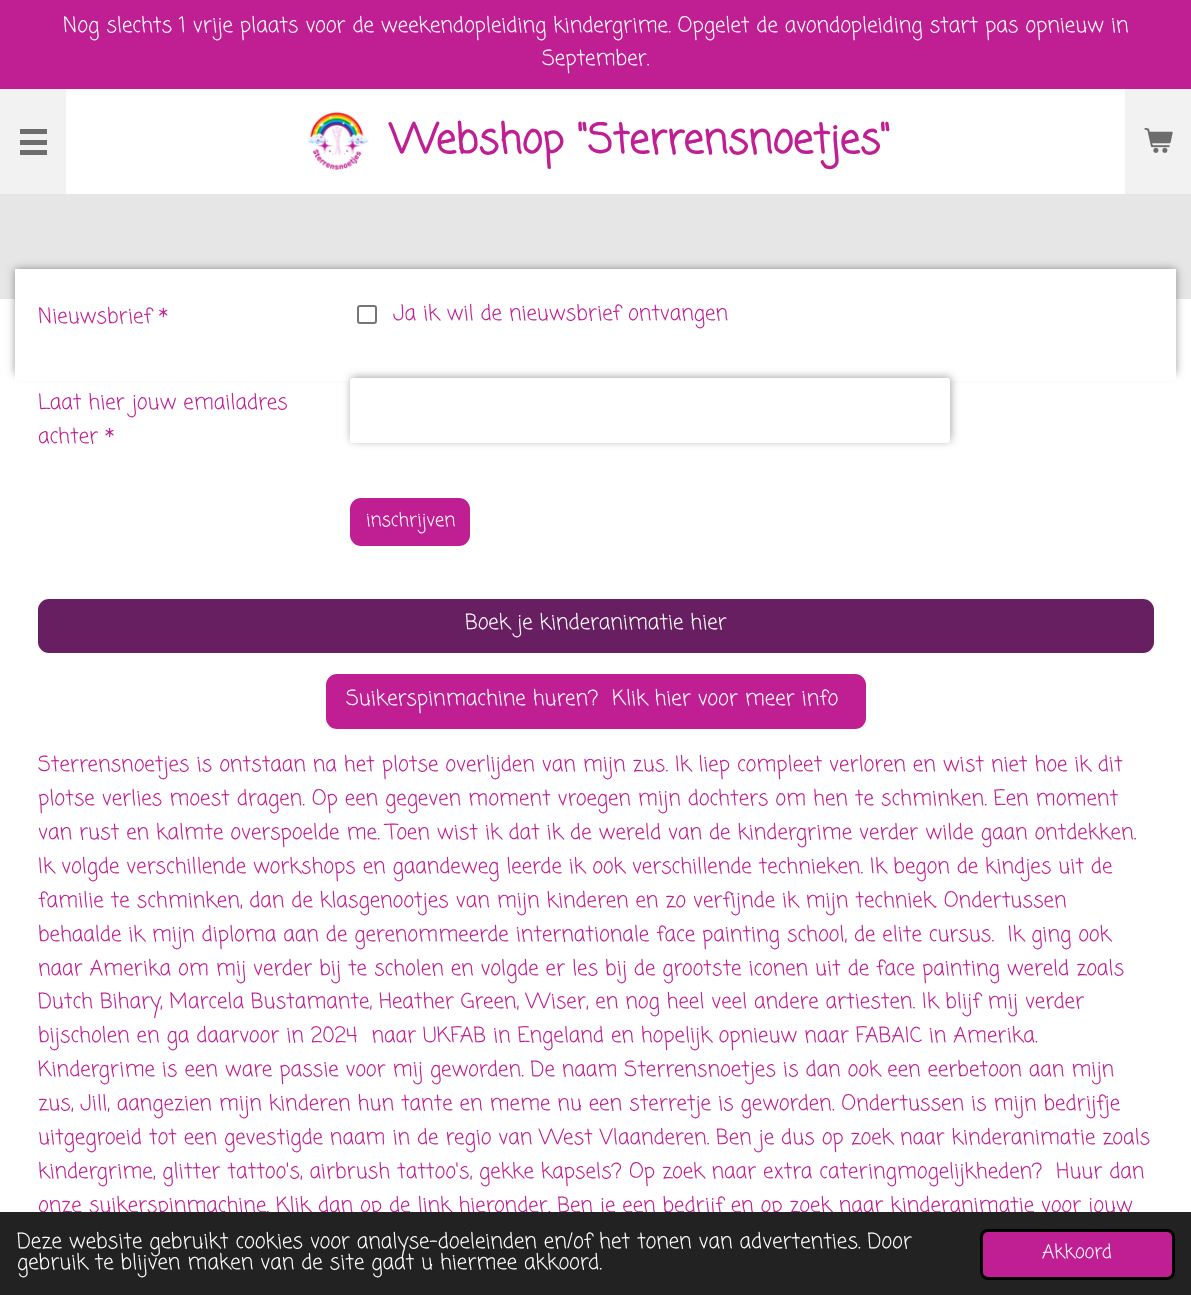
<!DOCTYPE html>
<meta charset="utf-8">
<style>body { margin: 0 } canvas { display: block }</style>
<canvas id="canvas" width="1191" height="1295"></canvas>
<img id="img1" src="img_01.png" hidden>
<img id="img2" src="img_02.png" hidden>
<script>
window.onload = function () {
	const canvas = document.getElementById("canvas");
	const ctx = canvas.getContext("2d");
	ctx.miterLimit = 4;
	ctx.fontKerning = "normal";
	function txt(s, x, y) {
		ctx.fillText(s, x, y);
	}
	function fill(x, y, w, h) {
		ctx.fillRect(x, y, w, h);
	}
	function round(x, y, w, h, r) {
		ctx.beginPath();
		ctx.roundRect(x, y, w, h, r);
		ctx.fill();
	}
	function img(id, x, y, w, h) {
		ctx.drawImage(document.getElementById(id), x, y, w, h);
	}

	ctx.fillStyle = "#FFFFFF";
	fill(0, 0, 1191, 1295);
	ctx.fillStyle = "#BF1F92";
	fill(0, 0, 1191, 89);
	ctx.fillStyle = "#F2F2F2";
	fill(0, 89, 66, 105);
	ctx.fillStyle = "#6D6D6D";
	fill(20, 140, 27, 5);
	fill(20, 129, 27, 5);
	fill(20, 150, 27, 5);
	img("img1", 307, 112, 62, 58);
	ctx.fillStyle = "#F2F2F2";
	fill(1125, 89, 66, 105);
	img("img2", 1144, 127, 29, 26);
	ctx.fillStyle = "#E6E6E6";
	fill(0, 194, 1191, 105);
	ctx.fillStyle = "rgba(0, 0, 0, 0.4)";
	ctx.filter = "blur(4px)";
	ctx.beginPath();
	ctx.rect(15, 269, 1161, 105);
	ctx.fill();
	ctx.filter = "none";
	ctx.fillStyle = "#FFFFFF";
	fill(15, 269, 1161, 112);
	ctx.beginPath();
	ctx.roundRect(358, 306, 18, 17, 2);
	ctx.strokeStyle = "#767676";
	ctx.lineWidth = 2;
	ctx.stroke();
	ctx.fillStyle = "rgba(0, 0, 0, 0.35)";
	ctx.filter = "blur(4px)";
	ctx.beginPath();
	ctx.roundRect(351, 377, 600, 64, 3);
	ctx.fill();
	ctx.filter = "none";
	ctx.fillStyle = "#FFFFFF";
	round(350, 378, 600, 65, 3);
	ctx.fillStyle = "#BF1F92";
	round(350, 498, 120, 48, 11);
	ctx.fillStyle = "#681F62";
	round(38, 599, 1116, 54, 11);
	ctx.fillStyle = "#BF1F92";
	round(326, 674, 540, 55, 11);
	ctx.font = "21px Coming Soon";
	ctx.fillStyle = "#FFFFFF";
	txt("Nog slechts 1 vrije plaats voor de weekendopleiding kindergrime. Opgelet de avondopleiding start pas opnieuw in", 63, 32);
	txt("September.", 542, 65);
	ctx.font = "bold 40.5px Coming Soon";
	ctx.fillStyle = "#BF1F92";
	txt("Webshop \"Sterrensnoetjes\"", 390, 153);
	ctx.font = "21px Coming Soon";
	txt("Nieuwsbrief *", 38, 323);
	txt("Ja ik wil de nieuwsbrief ontvangen", 393, 320);
	txt("Laat hier jouw emailadres", 38, 409);
	txt("achter *", 38, 443);
	ctx.font = "18.5px Coming Soon";
	ctx.fillStyle = "#FFFFFF";
	txt("inschrijven", 366, 526);
	ctx.font = "21px Coming Soon";
	txt("Boek je kinderanimatie hier", 465, 629);
	txt("Suikerspinmachine huren?  Klik hier voor meer info", 346, 705);
	ctx.fillStyle = "#BF1F92";
	txt("Sterrensnoetjes is ontstaan na het plotse overlijden van mijn zus. Ik liep compleet verloren en wist niet hoe ik dit", 38, 771);
	txt("plotse verlies moest dragen. Op een gegeven moment vroegen mijn dochters om hen te schminken. Een moment", 38, 805);
	txt("van rust en kalmte overspoelde me. Toen wist ik dat ik de wereld van de kindergrime verder wilde gaan ontdekken.", 38, 839);
	txt("Ik volgde verschillende workshops en gaandeweg leerde ik ook verschillende technieken. Ik begon de kindjes uit de", 38, 873);
	txt("familie te schminken, dan de klasgenootjes van mijn kinderen en zo verfijnde ik mijn techniek. Ondertussen", 38, 907);
	txt("behaalde ik mijn diploma aan de gerenommeerde internationale face painting school, de elite cursus.  Ik ging ook", 38, 941);
	txt("naar Amerika om mij verder bij te scholen en volgde er les bij de grootste iconen uit de face painting wereld zoals", 38, 975);
	txt("Dutch Bihary, Marcela Bustamante, Heather Green, Wiser, en nog heel veel andere artiesten. Ik blijf mij verder", 38, 1008);
	txt("bijscholen en ga daarvoor in 2024  naar UKFAB in Engeland en hopelijk opnieuw naar FABAIC in Amerika.", 38, 1042);
	txt("Kindergrime is een ware passie voor mij geworden. De naam Sterrensnoetjes is dan ook een eerbetoon aan mijn", 38, 1076);
	txt("zus, Jill, aangezien mijn kinderen hun tante en meme nu een sterretje is geworden. Ondertussen is mijn bedrijfje", 38, 1110);
	txt("uitgegroeid tot een gevestigde naam in de regio van West Vlaanderen. Ben je dus op zoek naar kinderanimatie zoals", 38, 1144);
	txt("kindergrime, glitter tattoo's, airbrush tattoo's, gekke kapsels? Op zoek naar extra cateringmogelijkheden?  Huur dan", 38, 1178);
	txt("onze suikerspinmachine. Klik dan op de link hieronder. Ben je een bedrijf en op zoek naar kinderanimatie voor jouw", 38, 1212);
	ctx.fillStyle = "#222222";
	fill(0, 1212, 1191, 83);
	ctx.fillStyle = "#FFFFFF";
	txt("Deze website gebruikt cookies voor analyse-doeleinden en/of het tonen van advertenties. Door", 17, 1248);
	txt("gebruik te blijven maken van de site gaat u hiermee akkoord.", 17, 1269);
	ctx.fillStyle = "#BF1F92";
	ctx.beginPath();
	ctx.roundRect(981.5, 1230.5, 192, 48, 6.5);
	ctx.fill();
	ctx.strokeStyle = "#000000";
	ctx.lineWidth = 3;
	ctx.stroke();
	ctx.font = "19px Coming Soon";
	ctx.fillStyle = "#FFFFFF";
	txt("Akkoord", 1042, 1258);
};
</script>
